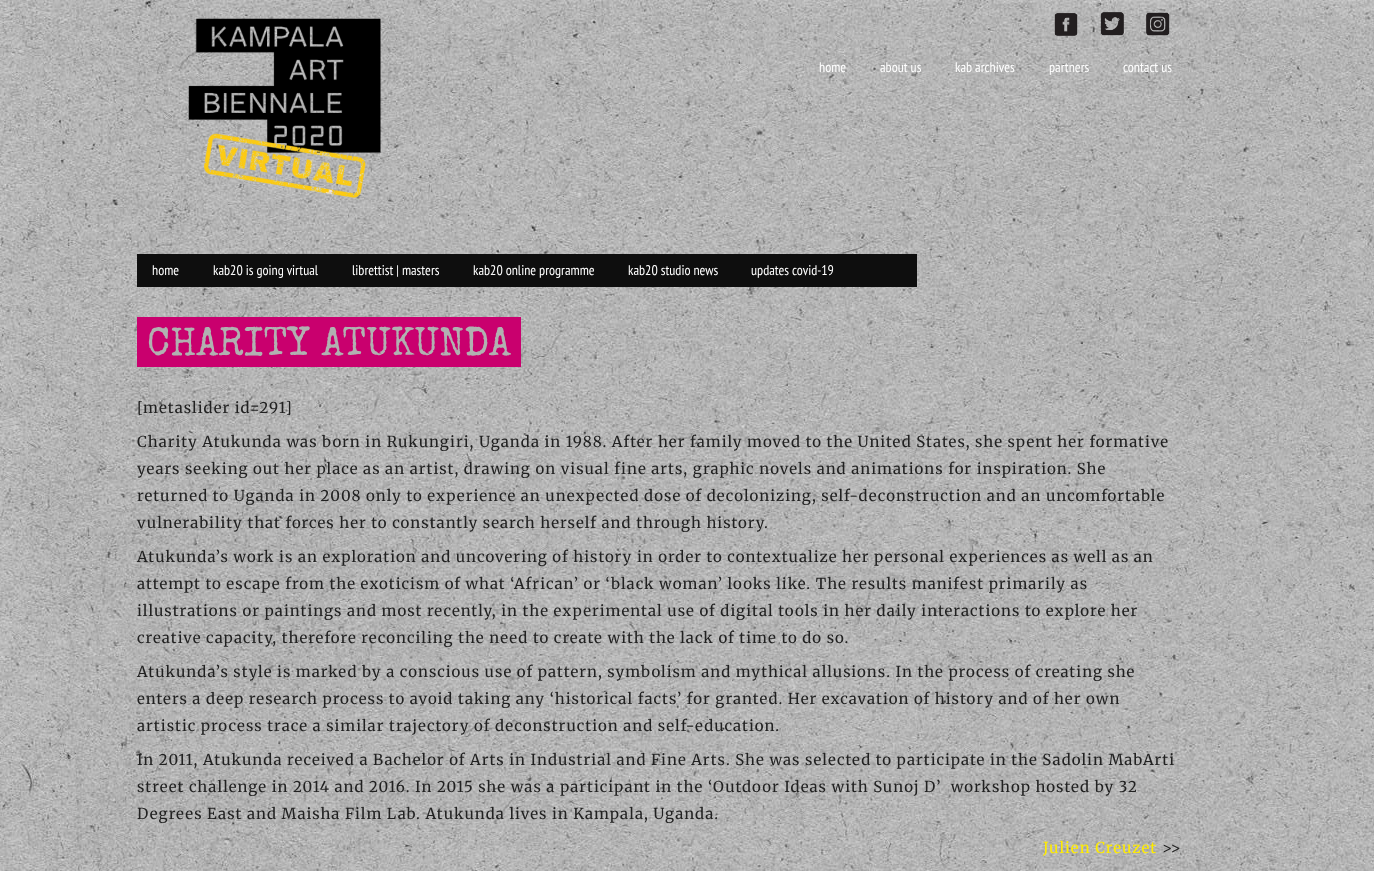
<!DOCTYPE html>
<meta charset="utf-8">
<style>body { margin: 0 } canvas { display: block }</style>
<canvas id="canvas" width="1374" height="871"></canvas>
<img id="img1" src="img_01.png" hidden>
<img id="img2" src="img_02.png" hidden>
<img id="img3" src="img_03.png" hidden>
<img id="img4" src="img_04.png" hidden>
<img id="img5" src="img_05.png" hidden>
<script>
window.onload = function () {
	const canvas = document.getElementById("canvas");
	const ctx = canvas.getContext("2d");
	ctx.miterLimit = 4;
	ctx.fontKerning = "normal";
	function txt(s, x, y) {
		ctx.fillText(s, x, y);
	}
	function fill(x, y, w, h) {
		ctx.fillRect(x, y, w, h);
	}
	function img(id, x, y, w, h) {
		ctx.drawImage(document.getElementById(id), x, y, w, h);
	}

	ctx.fillStyle = "#FFFFFF";
	fill(0, 0, 1374, 871);
	img("img1", 0, 0, 1374, 871);
	img("img2", 188, 18, 193, 180);
	img("img3", 1054, 13, 24, 23);
	img("img4", 1100, 12, 24, 24);
	img("img5", 1146, 12, 24, 24);
	ctx.fillStyle = "#0E0E0E";
	fill(137, 254, 780, 33);
	ctx.fillStyle = "#C9006E";
	fill(137, 317, 384, 50);
	ctx.font = "14px PT Sans Narrow";
	ctx.fillStyle = "#FFFFFF";
	txt("home", 819, 72);
	txt("about us", 880, 72);
	txt("kab archives", 955, 72);
	txt("partners", 1049, 72);
	txt("contact us", 1123, 72);
	txt("home", 152, 275);
	txt("kab20 is going virtual", 213, 275);
	txt("librettist | masters", 352, 275);
	txt("kab20 online programme", 473, 275);
	txt("kab20 studio news", 628, 275);
	txt("updates covid-19", 751, 275);
	ctx.font = "40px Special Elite";
	ctx.fillStyle = "#B1B1B1";
	txt("CHARITY ATUKUNDA", 147, 355);
	ctx.letterSpacing = "1px";
	ctx.font = "300 15px Merriweather";
	ctx.fillStyle = "#212121";
	txt("[metaslider id=291]", 137, 413);
	txt("Charity Atukunda was born in Rukungiri, Uganda in 1988. After her family moved to the United States, she spent her formative", 137, 447);
	txt("years seeking out her place as an artist, drawing on visual fine arts, graphic novels and animations for inspiration. She", 137, 474);
	txt("returned to Uganda in 2008 only to experience an unexpected dose of decolonizing, self-deconstruction and an uncomfortable", 137, 501);
	txt("vulnerability that forces her to constantly search herself and through history.", 137, 528);
	txt("Atukunda’s work is an exploration and uncovering of history in order to contextualize her personal experiences as well as an", 137, 562);
	txt("attempt to escape from the exoticism of what ‘African’ or ‘black woman’ looks like. The results manifest primarily as", 137, 589);
	txt("illustrations or paintings and most recently, in the experimental use of digital tools in her daily interactions to explore her", 137, 616);
	txt("creative capacity, therefore reconciling the need to create with the lack of time to do so.", 137, 643);
	txt("Atukunda’s style is marked by a conscious use of pattern, symbolism and mythical allusions. In the process of creating she", 137, 677);
	txt("enters a deep research process to avoid taking any ‘historical facts’ for granted. Her excavation of history and of her own", 137, 704);
	txt("artistic process trace a similar trajectory of deconstruction and self-education.", 137, 731);
	txt("In 2011, Atukunda received a Bachelor of Arts in Industrial and Fine Arts. She was selected to participate in the Sadolin MabArti", 137, 765);
	txt("street challenge in 2014 and 2016. In 2015 she was a participant in the ‘Outdoor Ideas with Sunoj D’  workshop hosted by 32", 137, 792);
	txt("Degrees East and Maisha Film Lab. Atukunda lives in Kampala, Uganda.", 137, 819);
	ctx.fillStyle = "#FFEC00";
	txt("Julien Creuzet", 1043, 853);
	ctx.fillStyle = "#212121";
	txt(">>", 1162, 853);
};
</script>
